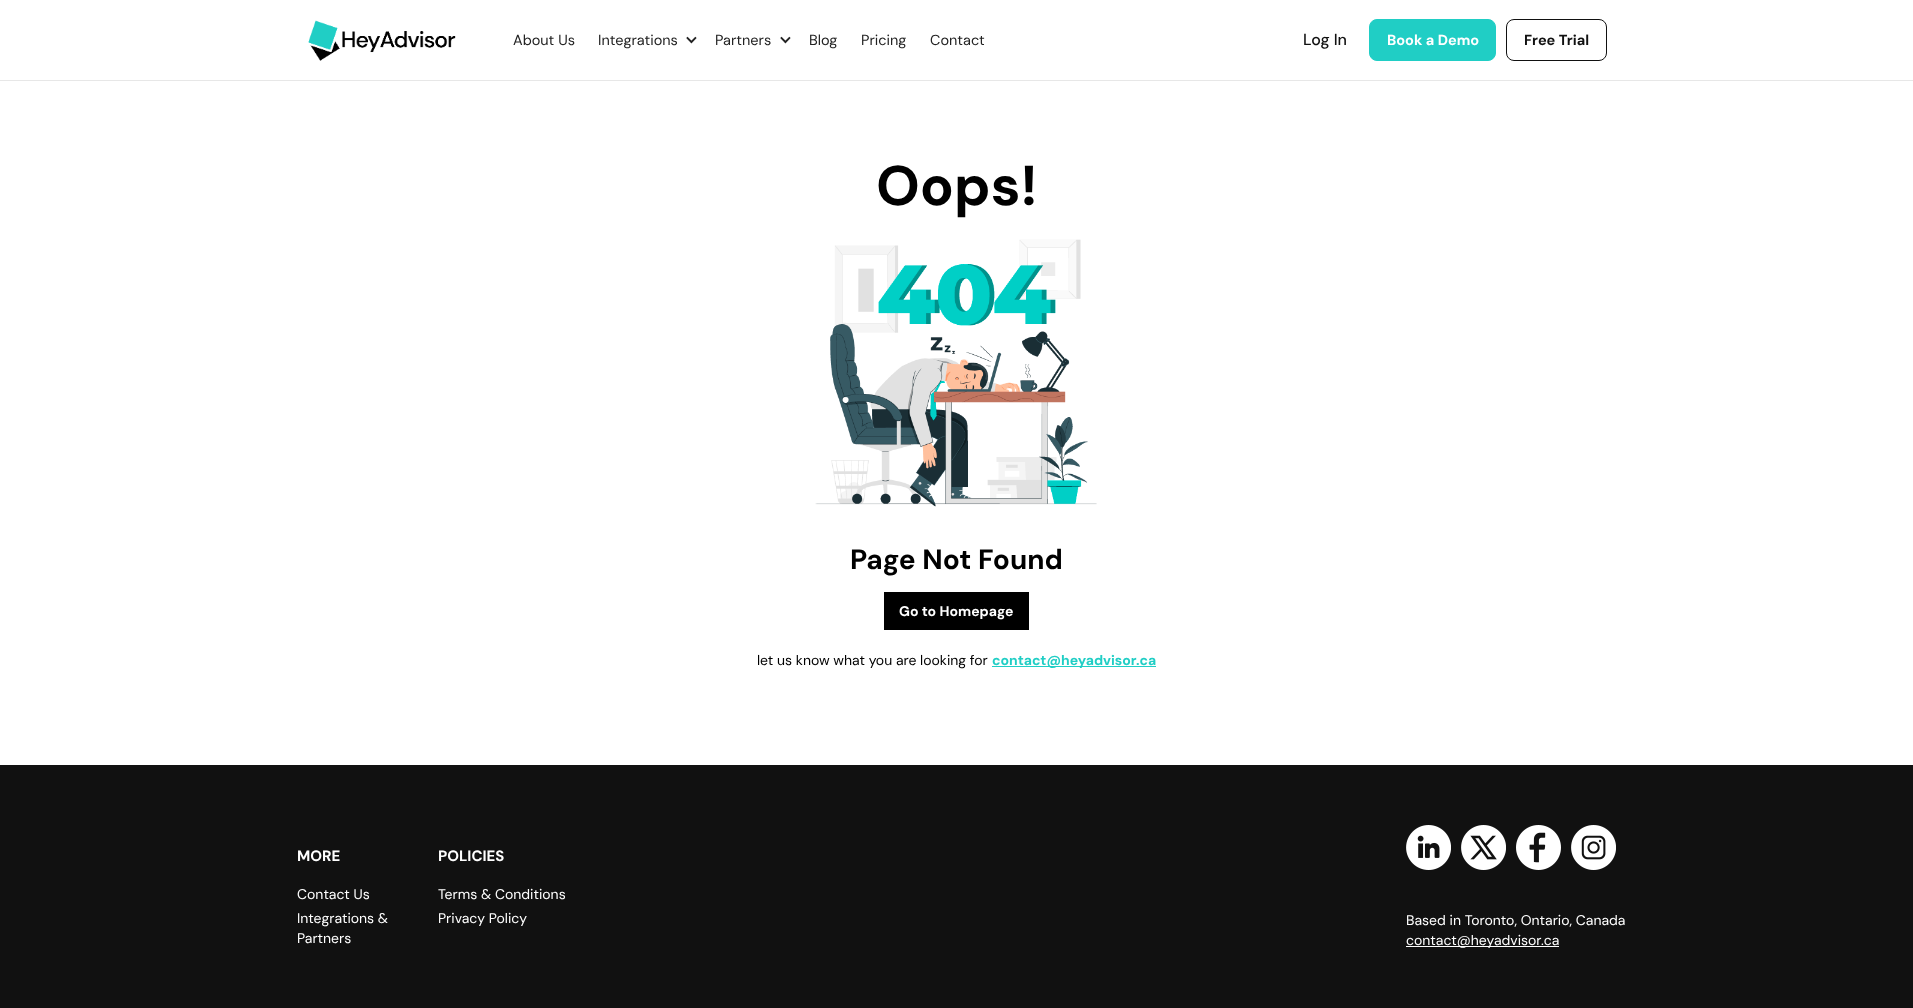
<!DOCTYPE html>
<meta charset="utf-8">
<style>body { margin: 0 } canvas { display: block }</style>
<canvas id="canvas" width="1913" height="1008"></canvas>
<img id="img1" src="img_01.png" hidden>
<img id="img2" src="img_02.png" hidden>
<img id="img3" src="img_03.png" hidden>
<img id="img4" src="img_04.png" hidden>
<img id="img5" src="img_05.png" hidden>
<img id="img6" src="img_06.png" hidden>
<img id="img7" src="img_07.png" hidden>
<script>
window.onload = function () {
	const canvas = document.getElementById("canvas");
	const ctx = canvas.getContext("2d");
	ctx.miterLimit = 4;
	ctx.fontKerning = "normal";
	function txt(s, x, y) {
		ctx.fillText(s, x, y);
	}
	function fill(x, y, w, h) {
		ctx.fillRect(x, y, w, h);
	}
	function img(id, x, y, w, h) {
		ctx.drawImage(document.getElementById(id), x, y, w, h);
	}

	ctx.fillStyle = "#FFFFFF";
	fill(0, 0, 1913, 1008);
	ctx.fillStyle = "#E7E7E7";
	fill(0, 80, 1913, 1);
	img("img1", 308, 20, 148, 41);
	img("img2", 686, 36, 11, 8);
	img("img2", 780, 36, 11, 8);
	ctx.fillStyle = "#20CEC5";
	ctx.beginPath();
	ctx.roundRect(1369.5, 19.5, 126, 41, 7.5);
	ctx.fill();
	ctx.strokeStyle = "#20CEC5";
	ctx.stroke();
	ctx.beginPath();
	ctx.roundRect(1506.5, 19.5, 100, 41, 7.5);
	ctx.strokeStyle = "#111111";
	ctx.stroke();
	img("img3", 815, 239, 282, 268);
	ctx.fillStyle = "#000000";
	fill(884, 592, 145, 38);
	ctx.fillStyle = "#20CEC5";
	fill(992, 666, 164, 1);
	ctx.fillStyle = "#111111";
	fill(0, 765, 1913, 243);
	img("img4", 1406, 825, 45, 45);
	img("img5", 1461, 825, 45, 45);
	img("img6", 1516, 825, 45, 45);
	img("img7", 1571, 825, 45, 45);
	ctx.fillStyle = "#FFFFFF";
	fill(1406, 946, 153, 1);
	ctx.font = "14.5px DM Sans";
	ctx.fillStyle = "#222222";
	txt("About Us", 513, 45);
	txt("Integrations", 598, 45);
	txt("Partners", 715, 45);
	txt("Blog", 809, 45);
	txt("Pricing", 861, 45);
	txt("Contact", 930, 45);
	ctx.font = "500 16px DM Sans";
	ctx.fillStyle = "#111111";
	txt("Log In", 1303, 45);
	ctx.font = "bold 14.5px DM Sans";
	ctx.fillStyle = "#FFFFFF";
	txt("Book a Demo", 1387, 45);
	ctx.fillStyle = "#111111";
	txt("Free Trial", 1524, 45);
	ctx.font = "bold 56px DM Sans";
	ctx.fillStyle = "#000000";
	txt("Oops!", 876, 205);
	ctx.font = "bold 28px DM Sans";
	txt("Page Not Found", 850, 569);
	ctx.font = "bold 14px DM Sans";
	ctx.fillStyle = "#FFFFFF";
	txt("Go to Homepage", 899, 616);
	ctx.font = "14px DM Sans";
	ctx.fillStyle = "#000000";
	txt("let us know what you are looking for", 757, 665);
	ctx.font = "bold 14px DM Sans";
	ctx.fillStyle = "#20CEC5";
	txt("contact@heyadvisor.ca", 992, 665);
	ctx.font = "bold 15px DM Sans";
	ctx.fillStyle = "#FFFFFF";
	txt("MORE", 297, 861);
	ctx.font = "14px DM Sans";
	txt("Contact Us", 297, 899);
	txt("Integrations &", 297, 923);
	txt("Partners", 297, 943);
	ctx.font = "bold 15px DM Sans";
	txt("POLICIES", 438, 861);
	ctx.font = "14px DM Sans";
	txt("Terms & Conditions", 438, 899);
	txt("Privacy Policy", 438, 923);
	txt("Based in Toronto, Ontario, Canada", 1406, 925);
	txt("contact@heyadvisor.ca", 1406, 945);
};
</script>
